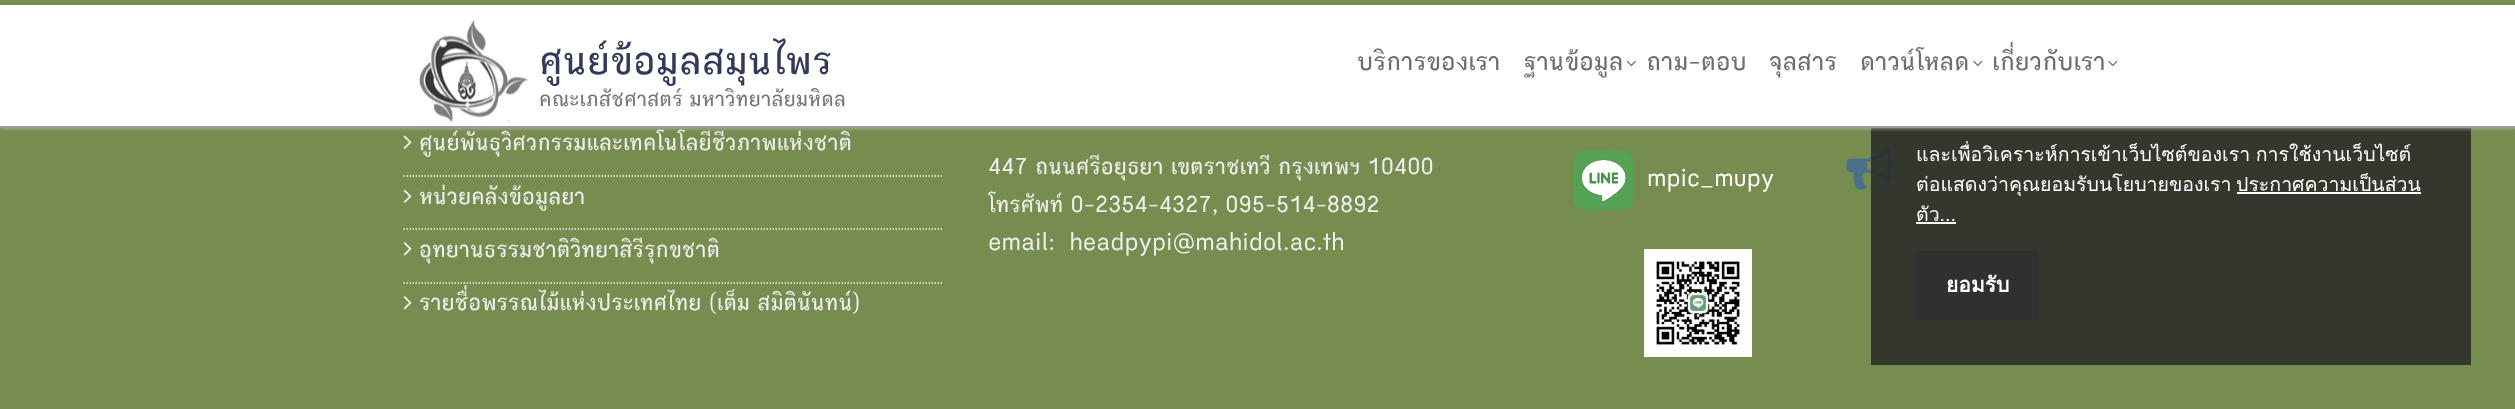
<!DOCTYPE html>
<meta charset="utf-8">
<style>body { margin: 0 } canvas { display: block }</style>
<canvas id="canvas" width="2515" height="409"></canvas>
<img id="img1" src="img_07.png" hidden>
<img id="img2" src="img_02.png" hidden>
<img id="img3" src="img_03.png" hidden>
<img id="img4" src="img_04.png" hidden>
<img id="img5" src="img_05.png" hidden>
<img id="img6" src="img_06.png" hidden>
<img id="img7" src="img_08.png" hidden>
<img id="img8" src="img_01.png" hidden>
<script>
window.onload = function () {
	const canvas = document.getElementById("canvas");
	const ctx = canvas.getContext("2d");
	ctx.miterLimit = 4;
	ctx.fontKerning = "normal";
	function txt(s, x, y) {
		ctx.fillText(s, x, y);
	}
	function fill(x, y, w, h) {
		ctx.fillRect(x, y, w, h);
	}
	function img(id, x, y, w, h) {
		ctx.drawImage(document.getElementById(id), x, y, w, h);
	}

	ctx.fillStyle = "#778C4F";
	fill(0, 0, 2515, 409);
	img("img1", 1846, 148, 49, 42);
	ctx.fillStyle = "rgba(35, 35, 35, 0.8)";
	fill(1871, 128, 600, 237);
	ctx.fillStyle = "#BBBBBB";
	ctx.filter = "blur(2px)";
	ctx.beginPath();
	ctx.rect(0, -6, 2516, 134);
	ctx.fill();
	ctx.filter = "none";
	ctx.fillStyle = "#FFFFFF";
	fill(0, 5, 2515, 121);
	ctx.fillStyle = "#999999";
	fill(0, 126, 2515, 2);
	ctx.fillStyle = "#778C4F";
	fill(0, 0, 2515, 5);
	img("img2", 1626, 60, 10, 7);
	img("img3", 1973, 60, 10, 7);
	img("img3", 2108, 60, 10, 7);
	img("img4", 403, 135, 9, 14);
	ctx.beginPath();
	ctx.moveTo(403.5, 176);
	ctx.lineTo(943.5, 176);
	ctx.strokeStyle = "#EFEFEF";
	ctx.lineWidth = 1.5;
	ctx.setLineDash([1.5, 1.5]);
	ctx.stroke();
	img("img4", 403, 189, 9, 14);
	ctx.beginPath();
	ctx.moveTo(403.5, 229);
	ctx.lineTo(943.5, 229);
	ctx.stroke();
	img("img5", 403, 242, 9, 14);
	ctx.beginPath();
	ctx.moveTo(403.5, 283);
	ctx.lineTo(943.5, 283);
	ctx.stroke();
	img("img5", 403, 296, 9, 14);
	img("img6", 1573, 150, 61, 60);
	img("img7", 1644, 249, 108, 108);
	ctx.fillStyle = "#FFFFFF";
	fill(2237, 192, 184, 2);
	fill(1916, 222, 40, 2);
	ctx.fillStyle = "#303030";
	fill(1916, 251, 123, 69);
	ctx.font = "42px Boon";
	ctx.fillStyle = "#323A5A";
	txt("ศูนย์ข้อมูลสมุนไพร", 539, 74);
	img("img8", 419, 19, 112, 103);
	ctx.font = "22.5px Boon";
	ctx.fillStyle = "#777777";
	txt("คณะเภสัชศาสตร์ มหาวิทยาลัยมหิดล", 539, 106);
	ctx.font = "27px Boon";
	ctx.fillStyle = "#6C6F71";
	txt("บริการของเรา", 1357, 70);
	txt("ฐานข้อมูล", 1523, 70);
	txt("ถาม-ตอบ", 1646, 70);
	txt("จุลสาร", 1769, 70);
	txt("ดาวน์โหลด", 1860, 70);
	txt("เกี่ยวกับเรา", 1992, 70);
	ctx.font = "24px Boon";
	ctx.fillStyle = "#EFEFEF";
	txt("ศูนย์พันธุวิศวกรรมและเทคโนโลยีชีวภาพแห่งชาติ", 419, 150);
	txt("หน่วยคลังข้อมูลยา", 419, 204);
	txt("อุทยานธรรมชาติวิทยาสิรีรุกขชาติ", 419, 257);
	txt("รายชื่อพรรณไม้แห่งประเทศไทย (เต็ม สมิตินันทน์)", 419, 310);
	txt("447 ถนนศรีอยุธยา เขตราชเทวี กรุงเทพฯ 10400", 988, 174);
	txt("โทรศัพท์ 0-2354-4327, 095-514-8892", 988, 212);
	txt("email:  headpypi@mahidol.ac.th", 988, 250);
	ctx.fillStyle = "#FFFFFF";
	txt("mpic_mupy", 1647, 186);
	ctx.wordSpacing = "-1px";
	ctx.font = "19.5px Loma";
	txt("และเพื่อวิเคราะห์การเข้าเว็บไซต์ของเรา การใช้งานเว็บไซต์", 1916, 161);
	ctx.wordSpacing = "0px";
	txt("ต่อแสดงว่าคุณยอมรับนโยบายของเรา", 1916, 191);
	txt("ประกาศความเป็นส่วน", 2236, 191);
	txt("ตัว...", 1916, 221);
	ctx.font = "bold 21px Loma";
	txt("ยอมรับ", 1946, 292);
};
</script>
